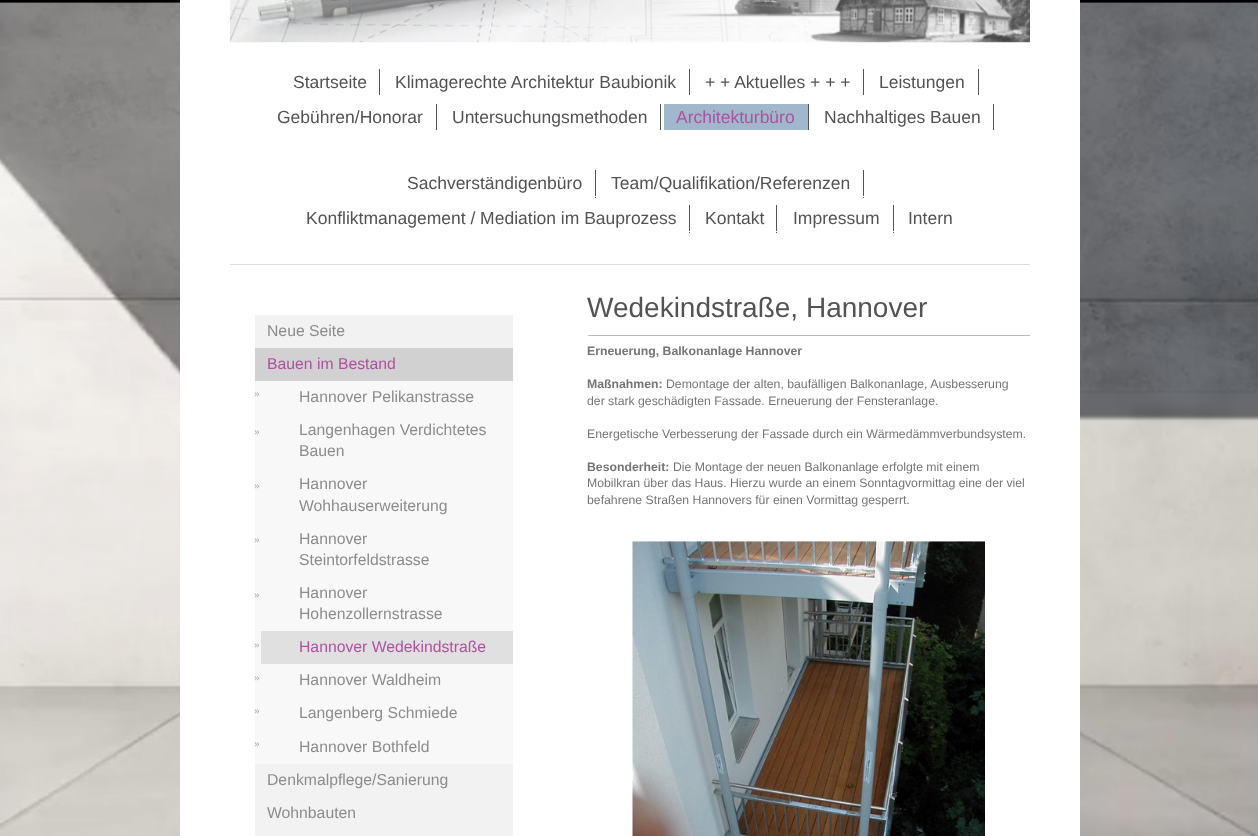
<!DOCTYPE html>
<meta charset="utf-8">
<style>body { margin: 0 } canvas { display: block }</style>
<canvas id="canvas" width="1258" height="836"></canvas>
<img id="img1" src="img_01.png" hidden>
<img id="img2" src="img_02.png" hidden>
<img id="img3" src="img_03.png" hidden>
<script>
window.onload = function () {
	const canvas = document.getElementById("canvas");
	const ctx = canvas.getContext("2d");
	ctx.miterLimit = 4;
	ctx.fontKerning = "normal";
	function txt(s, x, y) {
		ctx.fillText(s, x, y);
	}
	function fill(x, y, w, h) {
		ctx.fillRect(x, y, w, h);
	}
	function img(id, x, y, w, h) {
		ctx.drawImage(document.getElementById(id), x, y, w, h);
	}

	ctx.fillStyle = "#FFFFFF";
	fill(0, 0, 1258, 836);
	img("img1", 0, 0, 1258, 836);
	fill(180, 0, 900, 836);
	img("img2", 230, 0, 800, 43);
	ctx.fillStyle = "#DDDDDD";
	fill(230, 264, 800, 1);
	ctx.fillStyle = "#535353";
	fill(379, 69, 1, 27);
	ctx.fillStyle = "#FFFFFF";
	fill(379, 95, 1, 1);
	ctx.fillStyle = "#535353";
	fill(689, 69, 1, 27);
	ctx.fillStyle = "#FFFFFF";
	fill(689, 95, 1, 1);
	ctx.fillStyle = "#535353";
	fill(863, 69, 1, 27);
	ctx.fillStyle = "#FFFFFF";
	fill(863, 95, 1, 1);
	ctx.fillStyle = "#535353";
	fill(978, 69, 1, 27);
	ctx.fillStyle = "#FFFFFF";
	fill(978, 95, 1, 1);
	ctx.fillStyle = "#535353";
	fill(436, 104, 1, 27);
	ctx.fillStyle = "#FFFFFF";
	fill(436, 130, 2, 1);
	ctx.fillStyle = "#535353";
	fill(660, 104, 1, 27);
	ctx.fillStyle = "#FFFFFF";
	fill(660, 130, 1, 1);
	ctx.fillStyle = "#A1B7CC";
	fill(664, 104, 144, 26);
	ctx.fillStyle = "#535353";
	fill(808, 104, 1, 27);
	ctx.fillStyle = "#FFFFFF";
	fill(808, 130, 1, 1);
	ctx.fillStyle = "#535353";
	fill(993, 104, 1, 27);
	ctx.fillStyle = "#FFFFFF";
	fill(993, 130, 1, 1);
	ctx.fillStyle = "#535353";
	fill(595, 170, 1, 28);
	ctx.fillStyle = "#FFFFFF";
	fill(595, 196, 1, 1);
	ctx.fillStyle = "#535353";
	fill(863, 170, 1, 28);
	ctx.fillStyle = "#FFFFFF";
	fill(863, 196, 1, 1);
	ctx.fillStyle = "#535353";
	fill(689, 205, 1, 28);
	ctx.fillStyle = "#FFFFFF";
	fill(689, 231, 1, 1);
	ctx.fillStyle = "#535353";
	fill(776, 205, 1, 28);
	ctx.fillStyle = "#FFFFFF";
	fill(776, 231, 2, 1);
	ctx.fillStyle = "#535353";
	fill(893, 205, 1, 28);
	ctx.fillStyle = "#FFFFFF";
	fill(893, 231, 1, 1);
	ctx.fillStyle = "#F2F2F2";
	fill(255, 315, 258, 33);
	ctx.fillStyle = "#D1D1D1";
	fill(255, 348, 258, 33);
	ctx.fillStyle = "#F8F8F8";
	fill(255, 381, 258, 250);
	fill(255, 631, 6, 33);
	ctx.fillStyle = "#E0E0E0";
	fill(261, 631, 252, 33);
	ctx.fillStyle = "#F8F8F8";
	fill(255, 664, 258, 100);
	ctx.fillStyle = "#F2F2F2";
	fill(255, 764, 258, 72);
	ctx.fillStyle = "#BABABA";
	fill(588, 335, 442, 1);
	img("img3", 632, 541, 353, 295);
	ctx.font = "17.5px Liberation Sans";
	ctx.fillStyle = "#535353";
	txt("Startseite", 293, 88);
	txt("Klimagerechte Architektur Baubionik", 395, 88);
	txt("+ + Aktuelles + + +", 705, 88);
	txt("Leistungen", 879, 88);
	txt("Gebühren/Honorar", 277, 123);
	txt("Untersuchungsmethoden", 452, 123);
	ctx.fillStyle = "#B14FA2";
	txt("Architekturbüro", 676, 123);
	ctx.fillStyle = "#535353";
	txt("Nachhaltiges Bauen", 824, 123);
	txt("Sachverständigenbüro", 407, 189);
	txt("Team/Qualifikation/Referenzen", 611, 189);
	txt("Konfliktmanagement / Mediation im Bauprozess", 306, 224);
	txt("Kontakt", 705, 224);
	txt("Impressum", 793, 224);
	txt("Intern", 908, 224);
	ctx.font = "15.75px Liberation Sans";
	ctx.fillStyle = "#8C8C8C";
	txt("Neue Seite", 267, 336);
	ctx.fillStyle = "#B14FA2";
	txt("Bauen im Bestand", 267, 369);
	ctx.font = "10px Liberation Sans";
	ctx.fillStyle = "#A3A3A3";
	txt("»", 254, 397);
	ctx.font = "15.75px Liberation Sans";
	ctx.fillStyle = "#8C8C8C";
	txt("Hannover Pelikanstrasse", 299, 402);
	ctx.font = "10px Liberation Sans";
	ctx.fillStyle = "#A3A3A3";
	txt("»", 254, 435);
	ctx.font = "15.75px Liberation Sans";
	ctx.fillStyle = "#8C8C8C";
	txt("Langenhagen Verdichtetes", 299, 435);
	txt("Bauen", 299, 456);
	ctx.font = "10px Liberation Sans";
	ctx.fillStyle = "#A3A3A3";
	txt("»", 254, 489);
	ctx.font = "15.75px Liberation Sans";
	ctx.fillStyle = "#8C8C8C";
	txt("Hannover", 299, 489);
	txt("Wohhauserweiterung", 299, 511);
	ctx.font = "10px Liberation Sans";
	ctx.fillStyle = "#A3A3A3";
	txt("»", 254, 543);
	ctx.font = "15.75px Liberation Sans";
	ctx.fillStyle = "#8C8C8C";
	txt("Hannover", 299, 544);
	txt("Steintorfeldstrasse", 299, 565);
	ctx.font = "10px Liberation Sans";
	ctx.fillStyle = "#A3A3A3";
	txt("»", 254, 598);
	ctx.font = "15.75px Liberation Sans";
	ctx.fillStyle = "#8C8C8C";
	txt("Hannover", 299, 598);
	txt("Hohenzollernstrasse", 299, 619);
	ctx.font = "10px Liberation Sans";
	ctx.fillStyle = "#A3A3A3";
	txt("»", 254, 648);
	ctx.font = "15.75px Liberation Sans";
	ctx.fillStyle = "#B14FA2";
	txt("Hannover Wedekindstraße", 299, 652);
	ctx.font = "10px Liberation Sans";
	ctx.fillStyle = "#A3A3A3";
	txt("»", 254, 681);
	ctx.font = "15.75px Liberation Sans";
	ctx.fillStyle = "#8C8C8C";
	txt("Hannover Waldheim", 299, 685);
	ctx.font = "10px Liberation Sans";
	ctx.fillStyle = "#A3A3A3";
	txt("»", 254, 714);
	ctx.font = "15.75px Liberation Sans";
	ctx.fillStyle = "#8C8C8C";
	txt("Langenberg Schmiede", 299, 718);
	ctx.font = "10px Liberation Sans";
	ctx.fillStyle = "#A3A3A3";
	txt("»", 254, 747);
	ctx.font = "15.75px Liberation Sans";
	ctx.fillStyle = "#8C8C8C";
	txt("Hannover Bothfeld", 299, 752);
	txt("Denkmalpflege/Sanierung", 267, 785);
	txt("Wohnbauten", 267, 818);
	ctx.font = "28px Liberation Sans";
	ctx.fillStyle = "#535353";
	txt("Wedekindstraße, Hannover", 587, 317);
	ctx.font = "bold 12.25px Liberation Sans";
	ctx.fillStyle = "#757575";
	txt("Erneuerung, Balkonanlage Hannover", 587, 355);
	txt("Maßnahmen:", 587, 388);
	ctx.font = "12.25px Liberation Sans";
	txt("Demontage der alten, baufälligen Balkonanlage, Ausbesserung", 666, 388);
	txt("der stark geschädigten Fassade. Erneuerung der Fensteranlage.", 587, 405);
	txt("Energetische Verbesserung der Fassade durch ein Wärmedämmverbundsystem.", 587, 438);
	ctx.font = "bold 12.25px Liberation Sans";
	txt("Besonderheit:", 587, 471);
	ctx.font = "12.25px Liberation Sans";
	txt("Die Montage der neuen Balkonanlage erfolgte mit einem", 673, 471);
	txt("Mobilkran über das Haus. Hierzu wurde an einem Sonntagvormittag eine der viel", 587, 487);
	txt("befahrene Straßen Hannovers für einen Vormittag gesperrt.", 587, 504);
};
</script>
